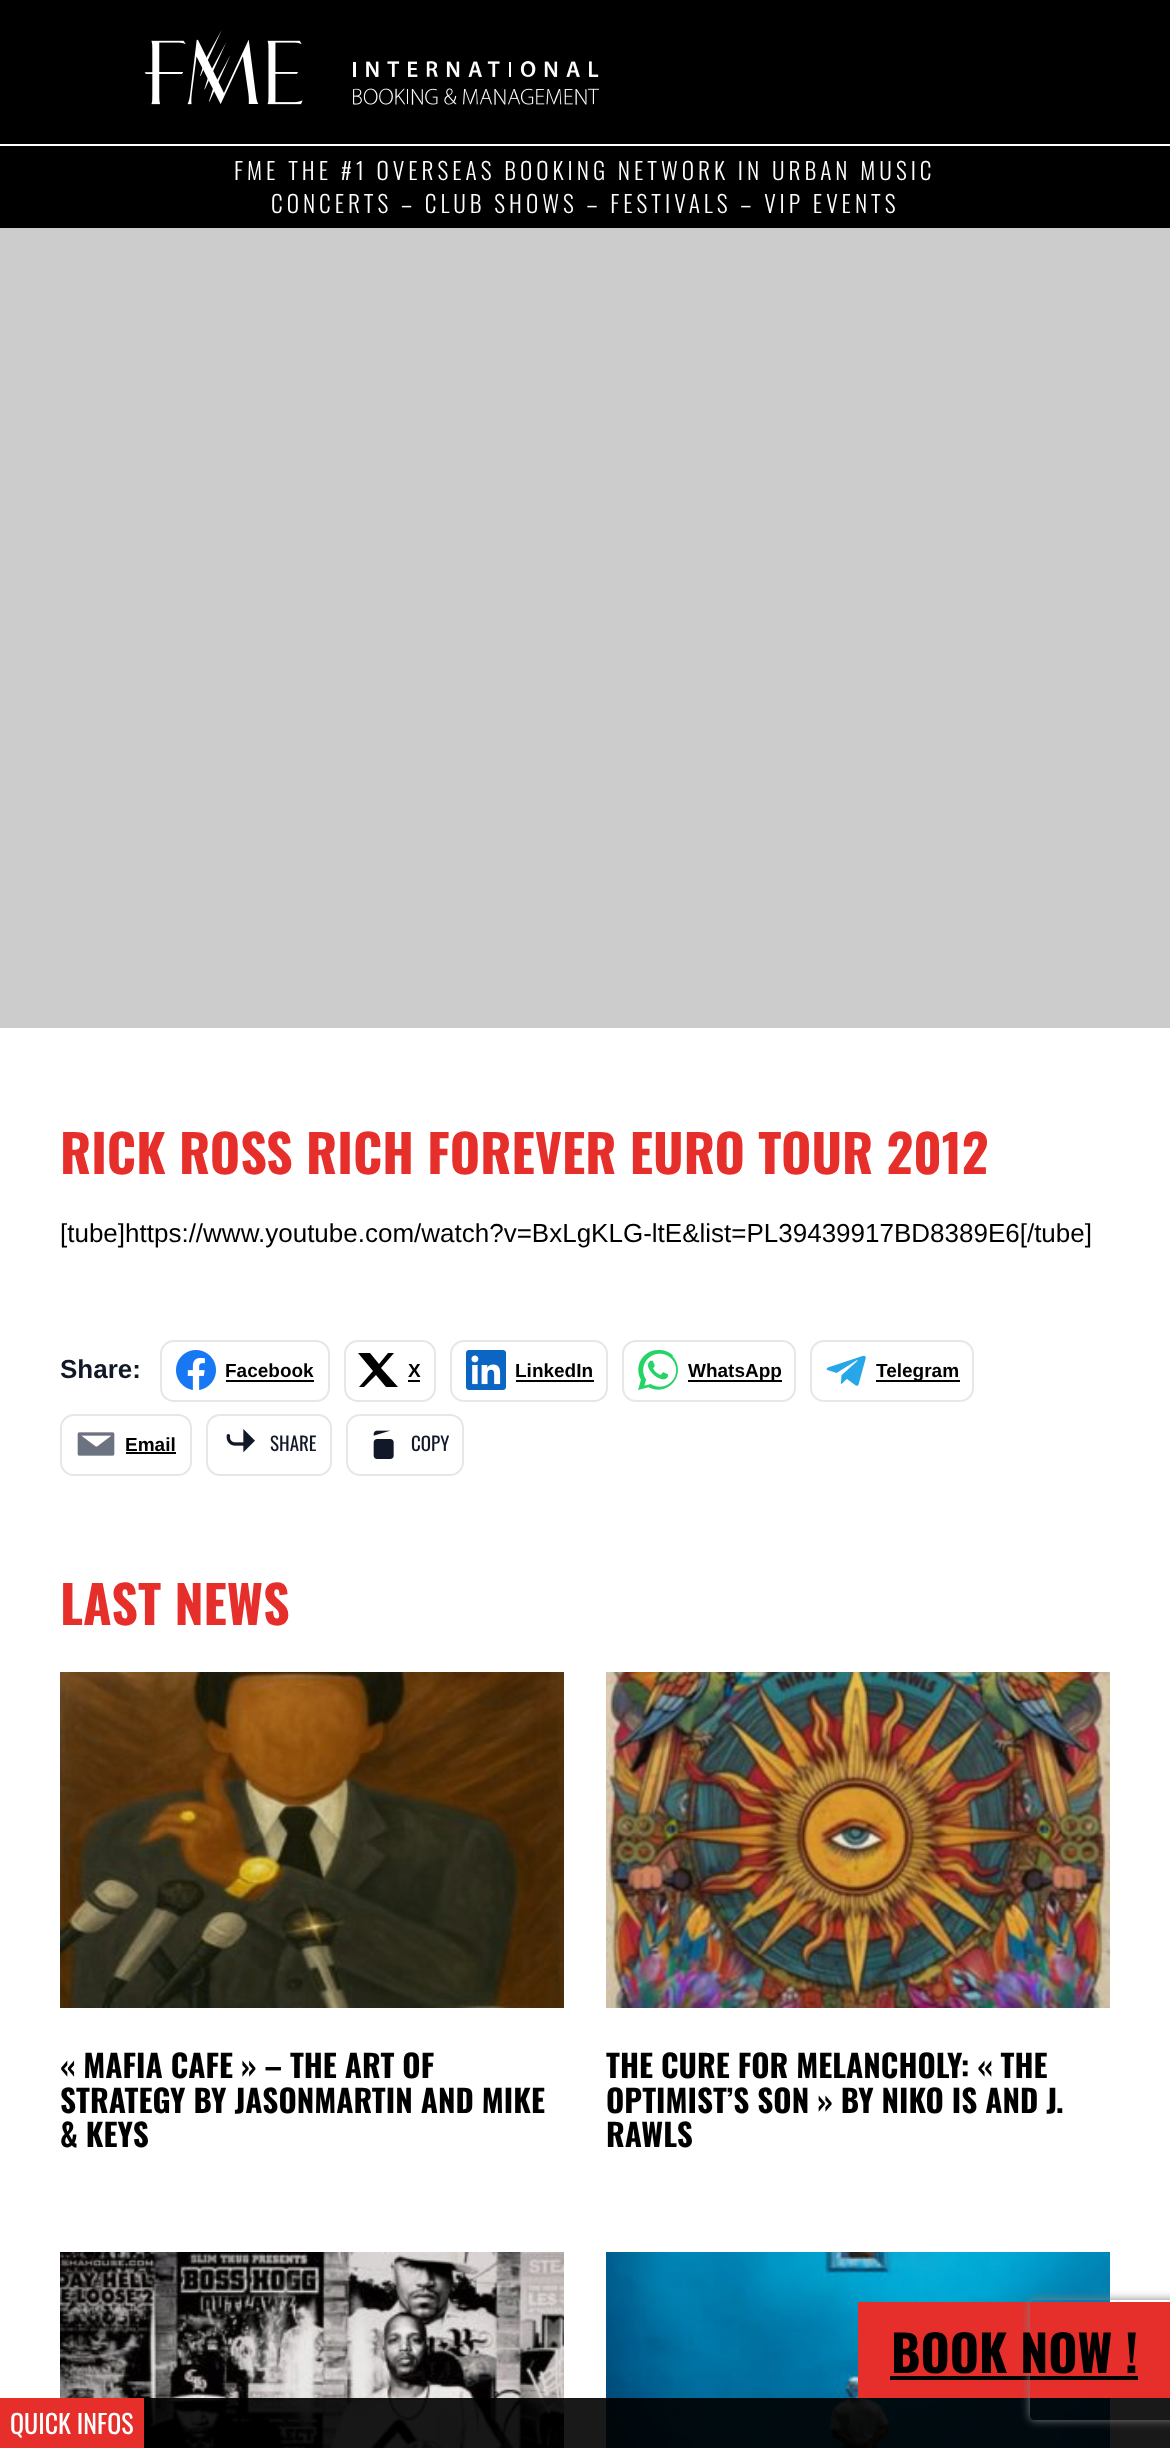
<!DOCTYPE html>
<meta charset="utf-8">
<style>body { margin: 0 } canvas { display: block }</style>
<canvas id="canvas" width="1170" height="2448"></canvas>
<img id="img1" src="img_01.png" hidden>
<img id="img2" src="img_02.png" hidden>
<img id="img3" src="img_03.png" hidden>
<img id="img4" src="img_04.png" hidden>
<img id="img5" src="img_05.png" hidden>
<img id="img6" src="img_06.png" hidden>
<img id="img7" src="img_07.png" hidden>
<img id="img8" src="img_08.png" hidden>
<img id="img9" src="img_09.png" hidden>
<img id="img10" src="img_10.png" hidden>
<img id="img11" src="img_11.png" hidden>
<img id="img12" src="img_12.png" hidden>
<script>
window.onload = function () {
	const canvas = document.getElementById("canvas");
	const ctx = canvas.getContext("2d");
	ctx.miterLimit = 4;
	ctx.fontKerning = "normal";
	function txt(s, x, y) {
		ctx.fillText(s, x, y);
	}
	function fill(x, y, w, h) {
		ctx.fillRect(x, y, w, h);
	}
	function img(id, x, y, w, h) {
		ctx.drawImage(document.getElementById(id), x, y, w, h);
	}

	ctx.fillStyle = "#000000";
	fill(0, 0, 1170, 2448);
	img("img1", 144, 30, 456, 75);
	ctx.fillStyle = "#FFFFFF";
	fill(0, 144, 1170, 2);
	ctx.fillStyle = "#CCCCCC";
	fill(0, 228, 1170, 800);
	ctx.fillStyle = "#FFFFFF";
	fill(0, 1028, 1170, 1420);
	ctx.beginPath();
	ctx.roundRect(161, 1341, 168, 60, 13);
	ctx.strokeStyle = "#E5E7EB";
	ctx.lineWidth = 2;
	ctx.stroke();
	img("img2", 176, 1350, 40, 40);
	ctx.fillStyle = "#000000";
	fill(226, 1380, 88, 2);
	ctx.beginPath();
	ctx.roundRect(345, 1341, 90, 60, 13);
	ctx.stroke();
	ctx.beginPath();
	ctx.moveTo(388, 1353);
	ctx.lineTo(394, 1353);
	ctx.lineTo(381, 1368);
	ctx.lineTo(398, 1387);
	ctx.lineTo(386, 1387);
	ctx.lineTo(376, 1375);
	ctx.lineTo(364, 1387);
	ctx.lineTo(359, 1387);
	ctx.lineTo(373, 1371);
	ctx.lineTo(358, 1353);
	ctx.lineTo(370, 1353);
	ctx.lineTo(379, 1364);
	ctx.closePath();
	ctx.fill();
	fill(408, 1380, 12, 2);
	ctx.beginPath();
	ctx.roundRect(451, 1341, 156, 60, 13);
	ctx.stroke();
	img("img3", 466, 1350, 40, 40);
	fill(516, 1380, 78, 2);
	ctx.beginPath();
	ctx.roundRect(623, 1341, 172, 60, 13);
	ctx.stroke();
	img("img4", 638, 1350, 40, 40);
	fill(688, 1380, 94, 2);
	ctx.beginPath();
	ctx.roundRect(811, 1341, 162, 60, 13);
	ctx.stroke();
	img("img5", 826, 1355, 40, 31);
	fill(876, 1380, 84, 2);
	ctx.beginPath();
	ctx.roundRect(61, 1415, 130, 60, 13);
	ctx.stroke();
	img("img6", 77, 1432, 38, 24);
	fill(126, 1452, 50, 2);
	ctx.beginPath();
	ctx.roundRect(207, 1415, 124, 60, 13);
	ctx.stroke();
	img("img7", 226, 1429, 29, 24);
	ctx.beginPath();
	ctx.roundRect(347, 1415, 116, 60, 13);
	ctx.stroke();
	img("img8", 373, 1430, 21, 29);
	img("img9", 60, 1672, 504, 336);
	img("img10", 606, 1672, 504, 336);
	img("img11", 60, 2252, 504, 196);
	img("img12", 606, 2252, 504, 196);
	ctx.fillStyle = "#E62E2B";
	fill(858, 2302, 312, 96);
	ctx.fillStyle = "#000000";
	fill(890, 2376, 248, 4);
	ctx.fillStyle = "rgba(0, 0, 0, 0.9)";
	fill(144, 2398, 1026, 50);
	ctx.save();
	ctx.beginPath();
	ctx.moveTo(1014, 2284);
	ctx.lineTo(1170, 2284);
	ctx.lineTo(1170, 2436);
	ctx.lineTo(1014, 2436);
	ctx.closePath();
	ctx.moveTo(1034, 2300);
	ctx.lineTo(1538, 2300);
	ctx.bezierCurveTo(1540, 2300, 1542, 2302, 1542, 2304);
	ctx.lineTo(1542, 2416);
	ctx.bezierCurveTo(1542, 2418, 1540, 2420, 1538, 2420);
	ctx.lineTo(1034, 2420);
	ctx.bezierCurveTo(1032, 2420, 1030, 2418, 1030, 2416);
	ctx.lineTo(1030, 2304);
	ctx.bezierCurveTo(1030, 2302, 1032, 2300, 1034, 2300);
	ctx.closePath();
	ctx.clip("evenodd");
	ctx.fillStyle = "#808080";
	ctx.filter = "blur(5px)";
	ctx.beginPath();
	ctx.roundRect(1030, 2300, 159, 120, 4);
	ctx.fill();
	ctx.filter = "none";
	ctx.restore();
	ctx.fillStyle = "#E62E2B";
	fill(0, 2398, 144, 50);
	ctx.letterSpacing = "4px";
	ctx.font = "300 23.4px Oswald";
	ctx.fillStyle = "#FFFFFF";
	txt("FME THE #1 OVERSEAS BOOKING NETWORK IN URBAN MUSIC", 234, 180);
	txt("CONCERTS – CLUB SHOWS – FESTIVALS – VIP EVENTS", 271, 213);
	ctx.letterSpacing = "0px";
	ctx.font = "bold 52px Oswald";
	ctx.fillStyle = "#E62E2B";
	txt("RICK ROSS RICH FOREVER EURO TOUR 2012", 60, 1174);
	ctx.font = "26px Liberation Sans";
	ctx.fillStyle = "#000000";
	txt("[tube]https://www.youtube.com/watch?v=BxLgKLG-ltE&list=PL39439917BD8389E6[/tube]", 60, 1242);
	ctx.font = "bold 26px Liberation Sans";
	ctx.fillStyle = "#111827";
	txt("Share:", 60, 1378);
	ctx.font = "bold 19px Liberation Sans";
	ctx.fillStyle = "#000000";
	txt("Facebook", 225, 1377);
	txt("X", 408, 1377);
	txt("LinkedIn", 515, 1377);
	txt("WhatsApp", 688, 1377);
	txt("Telegram", 876, 1377);
	txt("Email", 125, 1451);
	ctx.font = "19px Oswald";
	ctx.fillStyle = "#111827";
	txt("SHARE", 270, 1451);
	txt("COPY", 411, 1451);
	ctx.font = "bold 52px Oswald";
	ctx.fillStyle = "#E62E2B";
	txt("LAST NEWS", 60, 1625);
	ctx.font = "bold 31.25px Oswald";
	ctx.fillStyle = "#000000";
	txt("« MAFIA CAFE » – THE ART OF", 60, 2078);
	txt("STRATEGY BY JASONMARTIN AND MIKE", 60, 2113);
	txt("& KEYS", 60, 2147);
	txt("THE CURE FOR MELANCHOLY: « THE", 606, 2078);
	txt("OPTIMIST’S SON » BY NIKO IS AND J.", 606, 2113);
	txt("RAWLS", 606, 2147);
	ctx.font = "bold 50px Oswald";
	txt("BOOK NOW !", 891, 2373);
	ctx.font = "26px Oswald";
	ctx.fillStyle = "#FFFFFF";
	txt("QUICK INFOS", 10, 2434);
};
</script>
